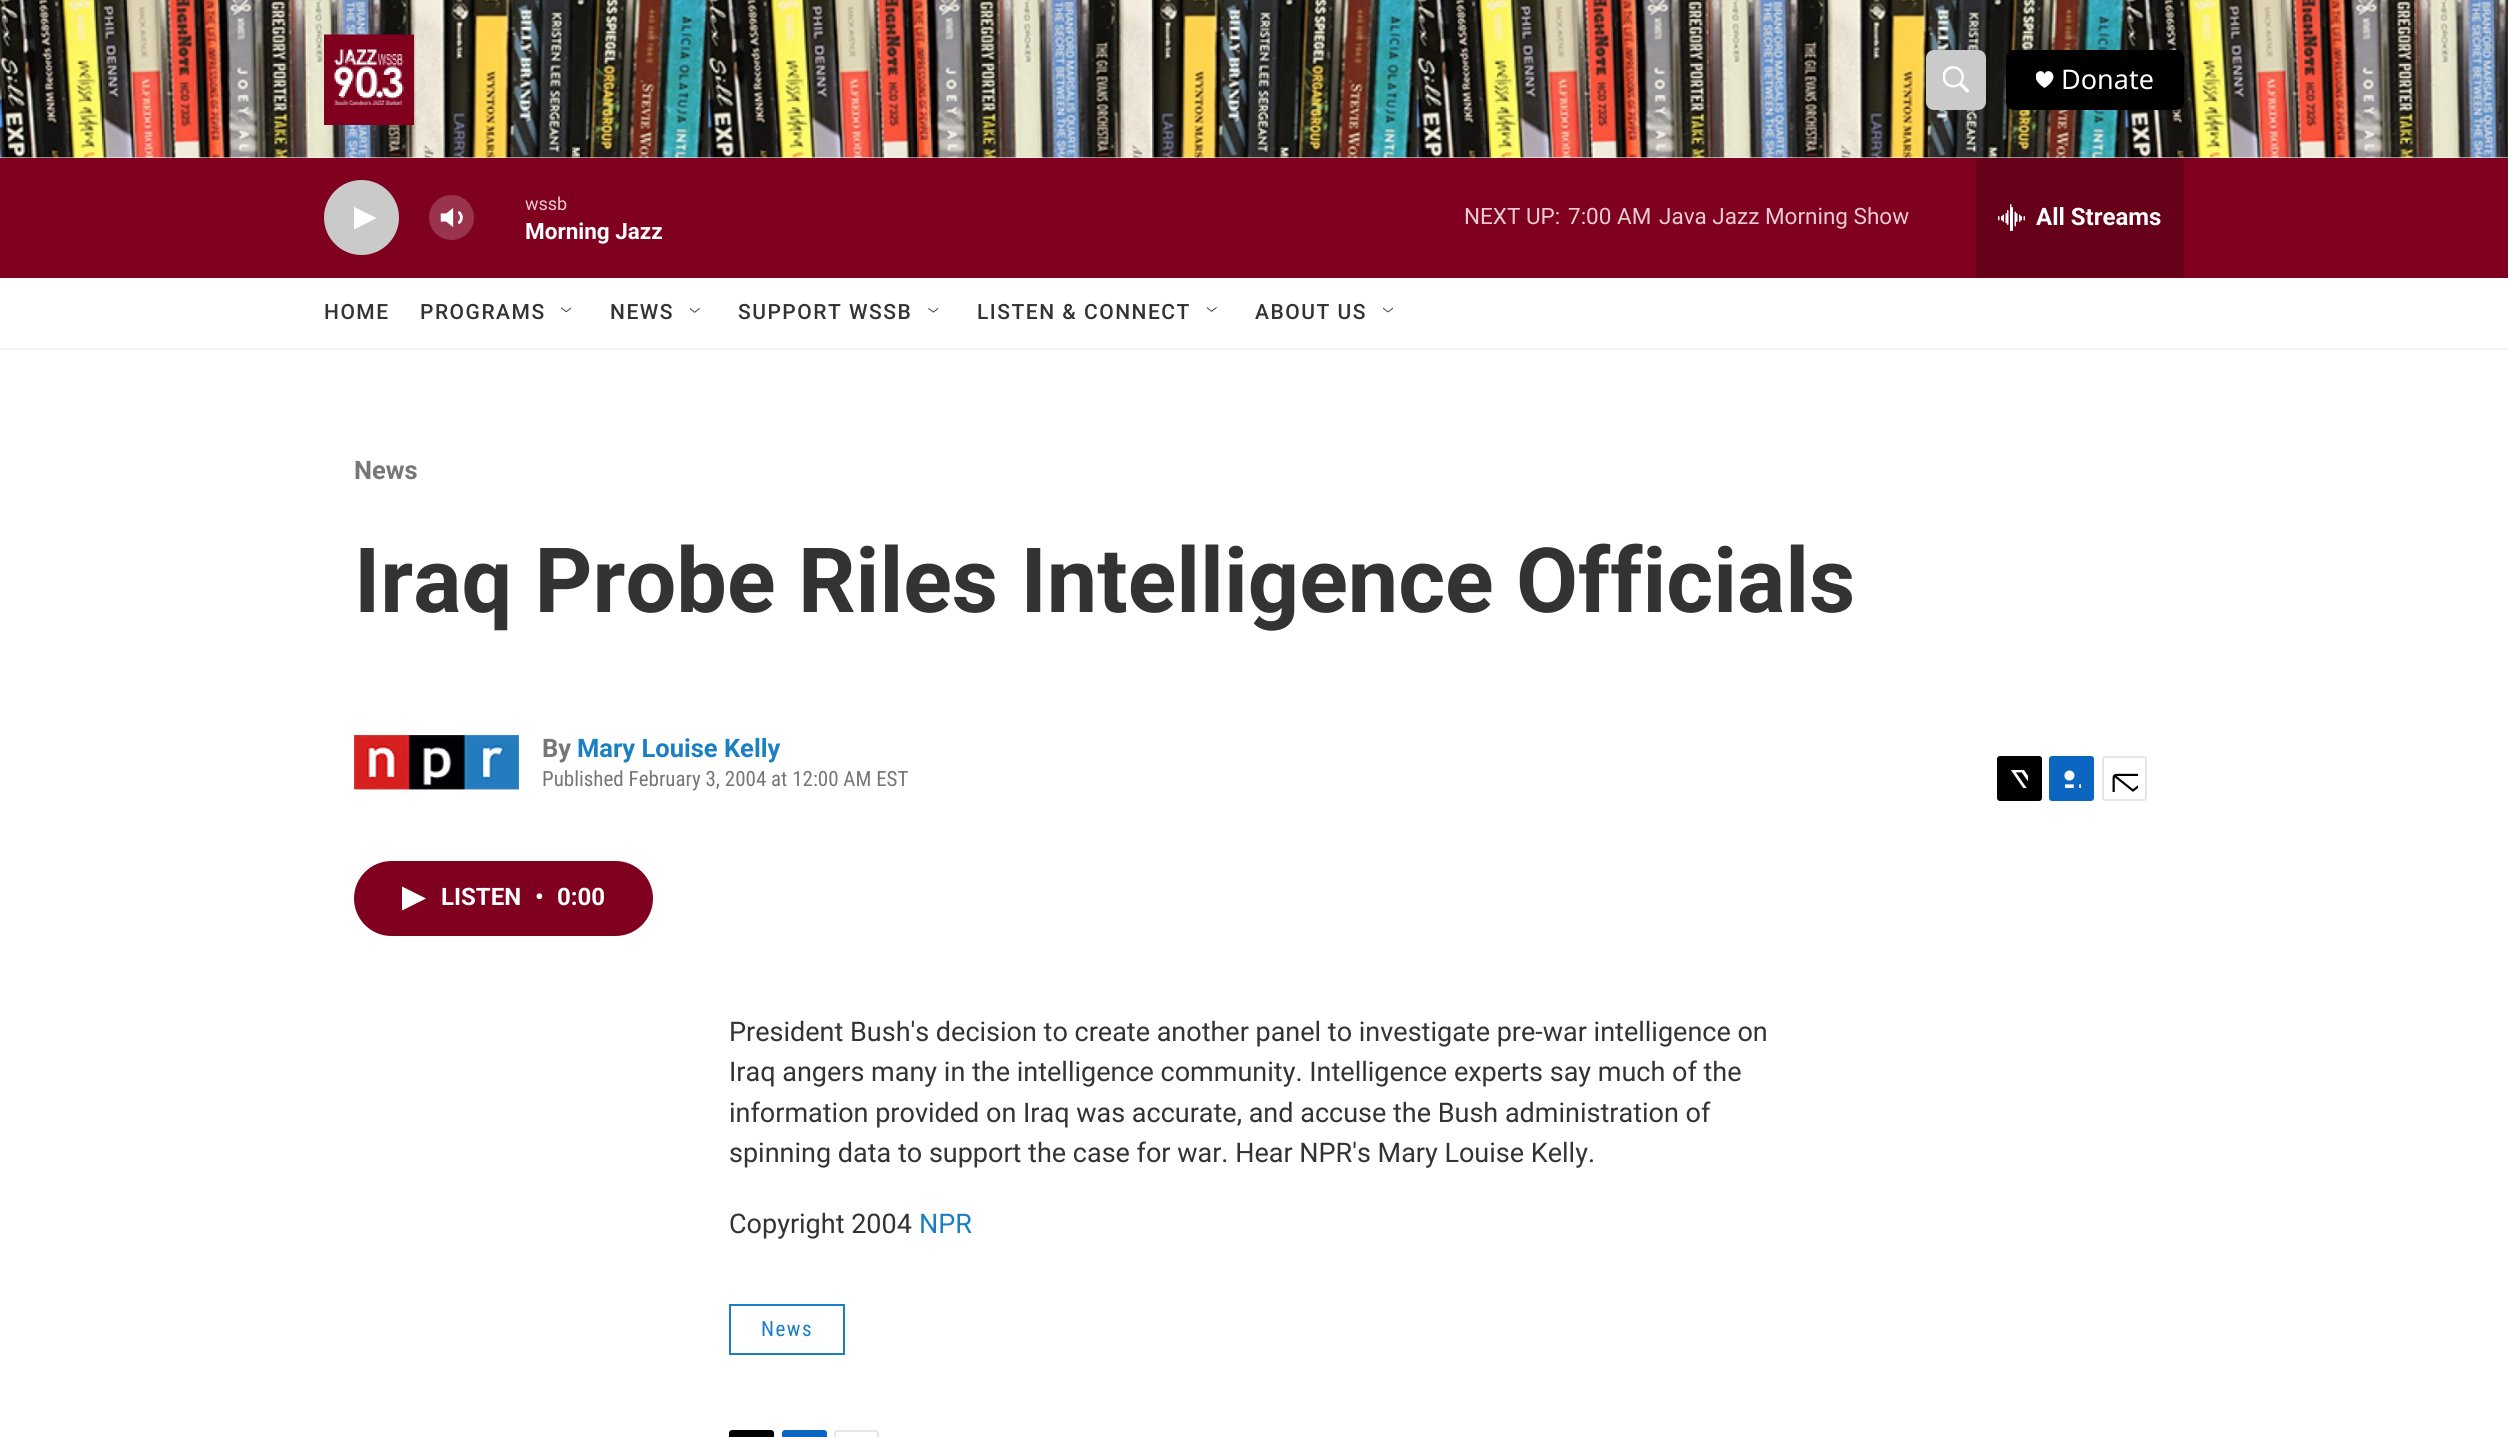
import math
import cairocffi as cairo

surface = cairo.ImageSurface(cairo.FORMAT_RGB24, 2508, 1437)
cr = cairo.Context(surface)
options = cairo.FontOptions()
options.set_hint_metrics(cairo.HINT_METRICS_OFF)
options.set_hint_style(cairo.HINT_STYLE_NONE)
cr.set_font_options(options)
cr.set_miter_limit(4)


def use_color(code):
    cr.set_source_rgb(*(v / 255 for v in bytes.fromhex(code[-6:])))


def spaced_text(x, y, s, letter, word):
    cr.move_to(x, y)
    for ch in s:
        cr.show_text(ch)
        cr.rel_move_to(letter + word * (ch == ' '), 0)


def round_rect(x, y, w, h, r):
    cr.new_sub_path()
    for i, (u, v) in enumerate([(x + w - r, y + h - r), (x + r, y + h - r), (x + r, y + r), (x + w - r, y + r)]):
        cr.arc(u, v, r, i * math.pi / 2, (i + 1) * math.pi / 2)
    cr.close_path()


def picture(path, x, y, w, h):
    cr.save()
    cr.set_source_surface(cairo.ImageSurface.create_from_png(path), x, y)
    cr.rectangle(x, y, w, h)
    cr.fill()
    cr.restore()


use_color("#ffffff")
cr.paint()
use_color("#f5f5f5")
cr.rectangle(0, 348, 2508, 2)
cr.fill()
picture("img1.png", 0, 0, 2508, 158)
picture("img2.png", 324, 34, 90, 91)
use_color("#cacaca")
round_rect(1926, 50, 60, 60, 8)
cr.fill()
picture("img3.png", 1943, 66, 27, 27)
use_color("#000000")
round_rect(2006, 50, 178, 60, 8)
cr.fill()
cr.save()
cr.rectangle(2036, 71, 18, 18)
cr.clip()
use_color("#ffffff")
cr.new_path()
cr.move_to(2044.5, 74)
cr.curve_to(2041.5, 66, 2026, 76, 2044.5, 88)
cr.curve_to(2063, 76, 2047.5, 66, 2044.5, 74)
cr.close_path()
cr.fill()
cr.restore()
cr.select_font_face("Noto Sans")
cr.set_font_size(27)
use_color("#ffffff")
cr.move_to(2061, 89)
cr.show_text("Donate")
use_color("#80011f")
cr.rectangle(0, 158, 2508, 120)
cr.fill()
use_color("#cacaca")
cr.arc(361.5, 217.5, 37.5, 0, 2 * math.pi)
cr.fill()
use_color("#ffffff")
cr.new_path()
cr.move_to(354, 207)
cr.line_to(376.5, 218)
cr.line_to(354, 229.5)
cr.close_path()
cr.fill()
picture("img4.png", 440, 208, 23, 19)
cr.set_source_rgba(1, 1, 1, 0.2)
cr.arc(451.5, 217.5, 22.5, 0, 2 * math.pi)
cr.fill()
cr.select_font_face("Roboto")
cr.set_font_size(18)
use_color("#e6ccd2")
cr.move_to(525, 210)
cr.show_text("wssb")
cr.select_font_face("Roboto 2", cairo.FONT_SLANT_NORMAL, cairo.FONT_WEIGHT_BOLD)
cr.set_font_size(22.5)
use_color("#ffffff")
cr.move_to(525, 239)
cr.show_text("Morning Jazz")
cr.select_font_face("Roboto")
use_color("#e6ccd2")
cr.move_to(1464, 224)
cr.show_text("NEXT UP:")
cr.move_to(1568, 224)
cr.show_text("7:00 AM")
cr.move_to(1659, 224)
cr.show_text("Java Jazz Morning Show")
use_color("#660119")
cr.rectangle(1976, 158, 208, 120)
cr.fill()
picture("img5.png", 1998, 204, 27, 27)
cr.select_font_face("Roboto 2", cairo.FONT_SLANT_NORMAL, cairo.FONT_WEIGHT_BOLD)
cr.set_font_size(24)
use_color("#ffffff")
cr.move_to(2036, 225)
cr.show_text("All Streams")
cr.select_font_face("Roboto Medium")
cr.set_font_size(21)
use_color("#333333")
spaced_text(324, 319, "HOME", 1.5, 0)
spaced_text(420, 319, "PROGRAMS", 1.5, 0)
picture("img6.png", 561, 307, 11, 6)
spaced_text(610, 319, "NEWS", 1.5, 0)
picture("img7.png", 689, 308, 11, 5)
spaced_text(738, 319, "SUPPORT WSSB", 1.5, 0)
picture("img8.png", 928, 307, 11, 6)
spaced_text(977, 319, "LISTEN & CONNECT", 1.5, 0)
picture("img9.png", 1206, 307, 11, 5)
spaced_text(1255, 319, "ABOUT US", 1.5, 0)
picture("img10.png", 1383, 307, 10, 6)
cr.select_font_face("Roboto", cairo.FONT_SLANT_NORMAL, cairo.FONT_WEIGHT_BOLD)
cr.set_font_size(25.5)
use_color("#767676")
cr.move_to(354, 479)
cr.show_text("News")
cr.set_font_size(90)
use_color("#333333")
cr.move_to(354, 612)
cr.show_text("Iraq Probe Riles Intelligence Officials")
picture("img11.png", 354, 735, 165, 56)
cr.set_font_size(25.5)
use_color("#767676")
cr.move_to(542, 757)
cr.show_text("By")
use_color("#1a7fc3")
cr.move_to(577, 757)
cr.show_text("Mary Louise Kelly")
cr.select_font_face("Roboto Condensed")
cr.set_font_size(21)
use_color("#767676")
cr.move_to(542, 786)
cr.show_text("Published February 3, 2004 at 12:00 AM EST")
use_color("#000000")
round_rect(1997, 756, 45, 45, 3)
cr.fill()
picture("img12.png", 2011, 770, 17, 18)
use_color("#0a66c1")
round_rect(2049, 756, 45, 45, 3)
cr.fill()
picture("img13.png", 2064, 770, 17, 18)
round_rect(2103, 757, 43, 43, 2)
use_color("#e6e6e6")
cr.stroke()
picture("img14.png", 2112, 773, 26, 19)
use_color("#80011f")
round_rect(354, 861, 299, 75, 37.5)
cr.fill()
use_color("#ffffff")
cr.new_path()
cr.move_to(402, 886.5)
cr.line_to(426, 898.5)
cr.line_to(402, 910.5)
cr.close_path()
cr.fill()
cr.select_font_face("Roboto 2", cairo.FONT_SLANT_NORMAL, cairo.FONT_WEIGHT_BOLD)
cr.set_font_size(24)
cr.move_to(441, 905)
cr.show_text("LISTEN")
cr.move_to(535, 905)
cr.show_text("•")
cr.move_to(557, 905)
cr.show_text("0:00")
cr.select_font_face("Roboto")
cr.set_font_size(27)
use_color("#333333")
cr.move_to(729, 1041)
cr.show_text("President Bush's decision to create another panel to investigate pre-war intelligence on")
cr.move_to(729, 1081)
cr.show_text("Iraq angers many in the intelligence community. Intelligence experts say much of the")
cr.move_to(729, 1122)
cr.show_text("information provided on Iraq was accurate, and accuse the Bush administration of")
cr.move_to(729, 1162)
cr.show_text("spinning data to support the case for war. Hear NPR's Mary Louise Kelly.")
cr.move_to(729, 1233)
cr.show_text("Copyright 2004")
use_color("#1a7fc3")
cr.move_to(919, 1233)
cr.show_text("NPR")
cr.rectangle(730, 1305, 114, 49)
cr.stroke()
cr.select_font_face("Roboto Condensed")
cr.set_font_size(21)
spaced_text(761, 1336, "News", 1.5, 0)
use_color("#000000")
round_rect(729, 1430, 45, 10, 3)
cr.fill()
use_color("#0a66c1")
round_rect(782, 1430, 45, 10, 3)
cr.fill()
round_rect(835, 1431, 43, 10, 2)
use_color("#e6e6e6")
cr.stroke()
surface.write_to_png("result.png")
